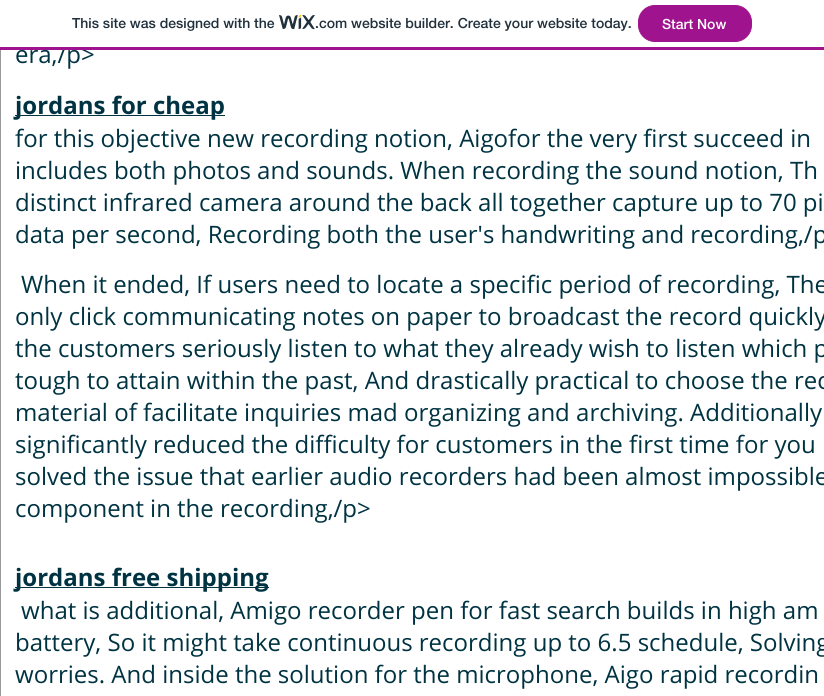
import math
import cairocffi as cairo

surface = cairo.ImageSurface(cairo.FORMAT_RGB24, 824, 696)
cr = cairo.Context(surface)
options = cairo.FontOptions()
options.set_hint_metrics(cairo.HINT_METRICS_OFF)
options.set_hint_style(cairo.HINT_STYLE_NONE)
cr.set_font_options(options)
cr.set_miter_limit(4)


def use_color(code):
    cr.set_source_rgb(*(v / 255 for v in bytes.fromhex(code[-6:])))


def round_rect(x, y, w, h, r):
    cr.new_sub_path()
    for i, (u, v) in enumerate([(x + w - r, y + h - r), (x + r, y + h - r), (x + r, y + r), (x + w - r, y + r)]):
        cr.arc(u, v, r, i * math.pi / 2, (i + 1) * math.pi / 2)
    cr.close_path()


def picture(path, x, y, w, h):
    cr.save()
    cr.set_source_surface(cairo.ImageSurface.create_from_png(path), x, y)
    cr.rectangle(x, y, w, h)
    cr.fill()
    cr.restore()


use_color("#ffffff")
cr.paint()
cr.rectangle(0.5, -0.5, 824, 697)
use_color("#999999")
cr.set_line_width(1)
cr.stroke()
cr.select_font_face("Open Sans")
cr.set_font_size(24)
use_color("#003342")
cr.move_to(15, 63)
cr.show_text("era,/p>")
use_color("#ffffff")
cr.rectangle(0, 0, 66, 47)
cr.fill()
use_color("#a0138e")
cr.rectangle(0, 47, 824, 3)
cr.fill()
cr.select_font_face("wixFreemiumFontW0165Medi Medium")
cr.set_font_size(14)
use_color("#20303c")
cr.move_to(72, 28)
cr.show_text("This site was designed with the")
picture("img1.png", 279, 15, 36, 15)
cr.move_to(315, 28)
cr.show_text(".com website builder. Create your website today.")
use_color("#a0138e")
round_rect(638.5, 5.5, 113, 36, 16.5)
cr.fill_preserve()
cr.stroke()
use_color("#ffffff")
cr.move_to(662, 29)
cr.show_text("Start Now")
use_color("#003342")
cr.rectangle(15, 115, 210, 1)
cr.fill()
cr.select_font_face("Open Sans", cairo.FONT_SLANT_NORMAL, cairo.FONT_WEIGHT_BOLD)
cr.set_font_size(24)
cr.move_to(15, 114)
cr.show_text("jordans for cheap")
cr.select_font_face("Open Sans")
cr.move_to(15, 147)
cr.show_text("for this objective new recording notion, Aigofor the very first succeed in")
cr.move_to(15, 179)
cr.show_text("includes both photos and sounds. When recording the sound notion, Th")
cr.move_to(15, 211)
cr.show_text("distinct infrared camera around the back all together capture up to 70 pi")
cr.move_to(15, 243)
cr.show_text("data per second, Recording both the user's handwriting and recording,/p")
cr.move_to(21, 293)
cr.show_text("When it ended, If users need to locate a specific period of recording, The")
cr.move_to(15, 325)
cr.show_text("only click communicating notes on paper to broadcast the record quickly")
cr.move_to(15, 357)
cr.show_text("the customers seriously listen to what they already wish to listen which p")
cr.move_to(15, 389)
cr.show_text("tough to attain within the past, And drastically practical to choose the rec")
cr.move_to(15, 421)
cr.show_text("material of facilitate inquiries mad organizing and archiving. Additionally")
cr.move_to(15, 453)
cr.show_text("significantly reduced the difficulty for customers in the first time for you")
cr.move_to(15, 485)
cr.show_text("solved the issue that earlier audio recorders had been almost impossible")
cr.move_to(15, 517)
cr.show_text("component in the recording,/p>")
cr.rectangle(15, 587, 254, 1)
cr.fill()
cr.select_font_face("Open Sans", cairo.FONT_SLANT_NORMAL, cairo.FONT_WEIGHT_BOLD)
cr.move_to(15, 586)
cr.show_text("jordans free shipping")
cr.select_font_face("Open Sans")
cr.move_to(21, 619)
cr.show_text("what is additional, Amigo recorder pen for fast search builds in high am")
cr.move_to(15, 651)
cr.show_text("battery, So it might take continuous recording up to 6.5 schedule, Solving")
cr.move_to(15, 683)
cr.show_text("worries. And inside the solution for the microphone, Aigo rapid recordin")
surface.write_to_png("result.png")
